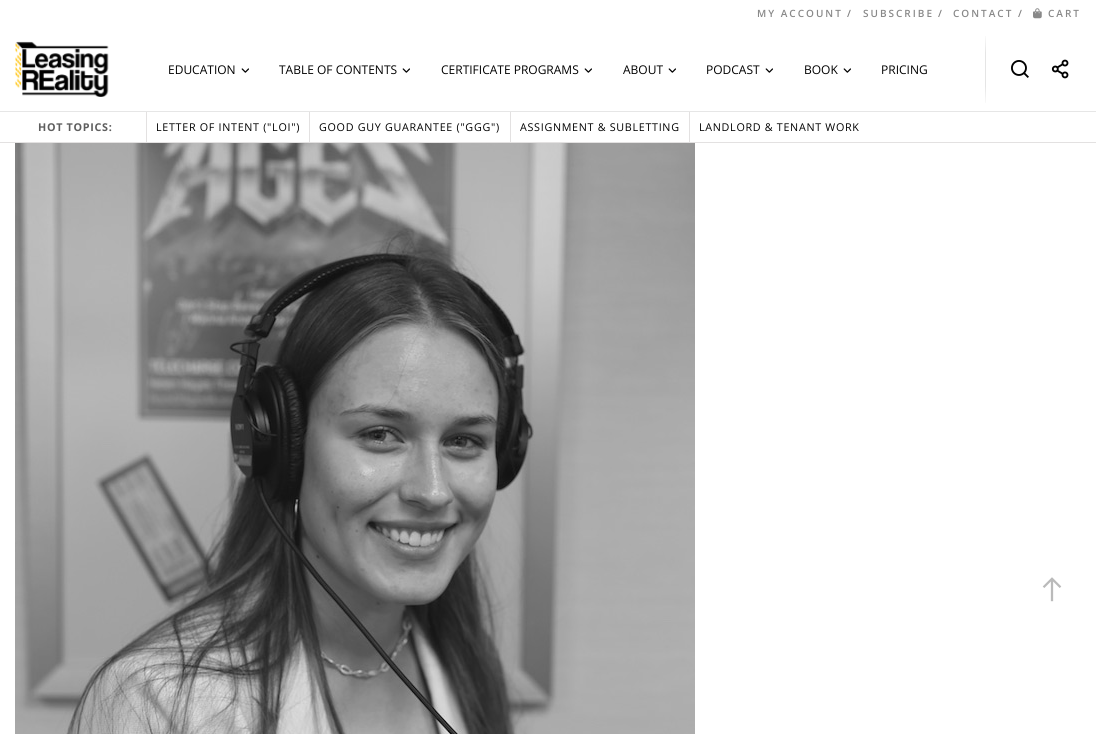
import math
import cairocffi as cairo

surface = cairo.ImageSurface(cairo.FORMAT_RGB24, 1096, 734)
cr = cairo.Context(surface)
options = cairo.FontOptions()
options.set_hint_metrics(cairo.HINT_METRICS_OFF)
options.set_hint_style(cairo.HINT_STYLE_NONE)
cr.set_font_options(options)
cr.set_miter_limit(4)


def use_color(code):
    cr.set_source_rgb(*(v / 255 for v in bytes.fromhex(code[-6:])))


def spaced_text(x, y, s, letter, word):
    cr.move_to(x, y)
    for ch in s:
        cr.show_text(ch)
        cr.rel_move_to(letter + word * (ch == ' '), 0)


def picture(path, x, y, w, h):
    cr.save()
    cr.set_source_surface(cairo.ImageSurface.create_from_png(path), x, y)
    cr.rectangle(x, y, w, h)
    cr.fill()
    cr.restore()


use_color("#ffffff")
cr.paint()
cr.select_font_face("Open Sans SemiBold")
cr.set_font_size(10)
use_color("#898989")
spaced_text(757, 17, "MY ACCOUNT", 2, 0)
use_color("#808080")
spaced_text(847, 17, "/", 2, 0)
use_color("#898989")
spaced_text(863, 17, "SUBSCRIBE", 2, 0)
use_color("#808080")
spaced_text(938, 17, "/", 2, 0)
use_color("#898989")
spaced_text(953, 17, "CONTACT", 2, 0)
use_color("#808080")
spaced_text(1018, 17, "/", 2, 0)
picture("img1.png", 1033, 8, 9, 11)
use_color("#898989")
spaced_text(1048, 17, "CART", 2, 0)
use_color("#e6e6e6")
cr.rectangle(0, 111, 1096, 1)
cr.fill()
picture("img2.png", 15, 41, 94, 56)
cr.select_font_face("Open Sans")
cr.set_font_size(12)
use_color("#000000")
cr.move_to(168, 74)
cr.show_text("EDUCATION")
picture("img3.png", 241, 68, 8, 5)
cr.move_to(279, 74)
cr.show_text("TABLE OF CONTENTS")
picture("img3.png", 402, 68, 8, 5)
cr.move_to(441, 74)
cr.show_text("CERTIFICATE PROGRAMS")
picture("img3.png", 584, 68, 8, 5)
cr.move_to(623, 74)
cr.show_text("ABOUT")
picture("img3.png", 668, 68, 8, 5)
cr.move_to(706, 74)
cr.show_text("PODCAST")
picture("img3.png", 765, 68, 8, 5)
cr.move_to(804, 74)
cr.show_text("BOOK")
picture("img3.png", 843, 68, 8, 5)
cr.move_to(881, 74)
cr.show_text("PRICING")
gradient = cairo.LinearGradient(986, 27, 986, 112)
gradient.add_color_stop_rgba(0.05, 0, 0, 0, 0)
gradient.add_color_stop_rgba(0.3, 0, 0, 0, 0.1)
gradient.add_color_stop_rgba(0.7, 0, 0, 0, 0.1)
gradient.add_color_stop_rgba(0.95, 0, 0, 0, 0)
cr.set_source(gradient)
cr.rectangle(985, 36, 1, 67)
cr.fill()
picture("img4.png", 1011, 60, 18, 18)
picture("img5.png", 1051, 59, 18, 20)
use_color("#e3e1e1")
cr.rectangle(0, 142, 1096, 1)
cr.fill()
cr.rectangle(146, 112, 1, 30)
cr.fill()
cr.select_font_face("Open Sans", cairo.FONT_SLANT_NORMAL, cairo.FONT_WEIGHT_BOLD)
cr.set_font_size(10.75)
use_color("#5e5e5e")
spaced_text(38, 131, "HOT TOPICS:", 0.7, 0)
use_color("#e3e1e1")
cr.rectangle(309, 112, 1, 30)
cr.fill()
cr.select_font_face("Open Sans")
use_color("#000000")
spaced_text(156, 131, "LETTER OF INTENT (\"LOI\")", 0.7, 0)
use_color("#e3e1e1")
cr.rectangle(510, 112, 1, 30)
cr.fill()
use_color("#000000")
spaced_text(319, 131, "GOOD GUY GUARANTEE (\"GGG\")", 0.7, 0)
use_color("#e3e1e1")
cr.rectangle(689, 112, 1, 30)
cr.fill()
use_color("#000000")
spaced_text(520, 131, "ASSIGNMENT & SUBLETTING", 0.7, 0)
spaced_text(699, 131, "LANDLORD & TENANT WORK", 0.7, 0)
picture("img6.png", 15, 143, 680, 591)
picture("img7.png", 1042, 577, 20, 25)
surface.write_to_png("result.png")
